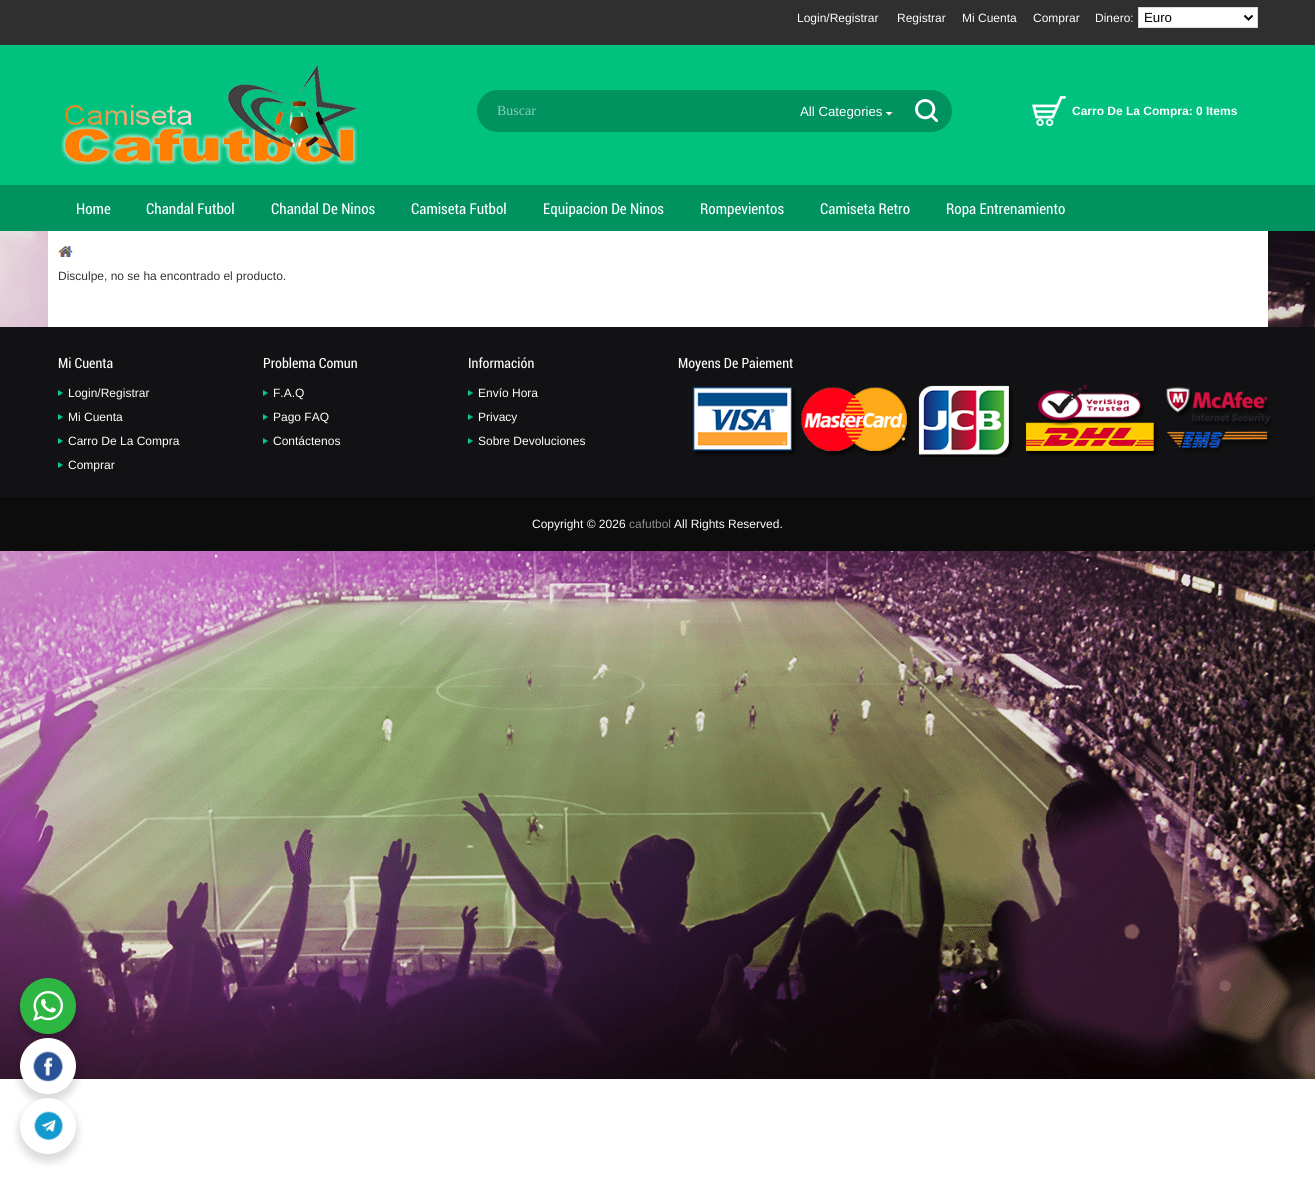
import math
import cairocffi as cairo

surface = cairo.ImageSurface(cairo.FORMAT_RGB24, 1315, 1199)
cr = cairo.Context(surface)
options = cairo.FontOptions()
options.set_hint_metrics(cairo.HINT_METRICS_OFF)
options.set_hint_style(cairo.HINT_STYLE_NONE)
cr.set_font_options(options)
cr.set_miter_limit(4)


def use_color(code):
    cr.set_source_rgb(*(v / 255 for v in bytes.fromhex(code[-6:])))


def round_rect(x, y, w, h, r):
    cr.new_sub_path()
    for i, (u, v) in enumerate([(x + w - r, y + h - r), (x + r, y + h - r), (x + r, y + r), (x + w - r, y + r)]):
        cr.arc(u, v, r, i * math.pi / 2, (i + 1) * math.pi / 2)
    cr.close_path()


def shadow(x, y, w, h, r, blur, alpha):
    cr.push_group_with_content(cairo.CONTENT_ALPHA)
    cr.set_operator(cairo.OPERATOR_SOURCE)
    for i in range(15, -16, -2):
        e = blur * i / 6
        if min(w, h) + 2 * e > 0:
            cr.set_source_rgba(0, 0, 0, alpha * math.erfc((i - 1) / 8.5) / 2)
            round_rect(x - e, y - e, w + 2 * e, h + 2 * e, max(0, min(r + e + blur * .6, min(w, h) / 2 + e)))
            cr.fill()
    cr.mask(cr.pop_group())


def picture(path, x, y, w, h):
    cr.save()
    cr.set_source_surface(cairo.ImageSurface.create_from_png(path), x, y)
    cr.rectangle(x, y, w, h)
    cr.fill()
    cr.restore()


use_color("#ffffff")
cr.paint()
picture("img1.png", 0, 231, 1315, 848)
use_color("#2f2f2f")
cr.rectangle(0, 0, 1315, 45)
cr.fill()
cr.select_font_face("Liberation Sans")
cr.set_font_size(12)
use_color("#ffffff")
cr.move_to(797, 22)
cr.show_text("Login/Registrar")
cr.move_to(897, 22)
cr.show_text("Registrar")
cr.move_to(962, 22)
cr.show_text("Mi Cuenta")
cr.move_to(1033, 22)
cr.show_text("Comprar")
cr.move_to(1095, 22)
cr.show_text("Dinero:")
cr.rectangle(1138.5, 7.5, 119, 20)
cr.fill_preserve()
use_color("#dddddd")
cr.set_line_width(1)
cr.stroke()
cr.new_path()
cr.move_to(1244.5, 15.5)
cr.line_to(1248.5, 19.5)
cr.line_to(1252.5, 15.5)
use_color("#010101")
cr.set_line_width(2)
cr.stroke()
cr.set_font_size(13.25)
cr.move_to(1144, 22)
cr.show_text("Euro")
use_color("#00c17e")
cr.rectangle(0, 45, 1315, 140)
cr.fill()
picture("img2.png", 60, 65, 298, 100)
use_color("#00935f")
round_rect(477, 90, 475, 42, 21)
cr.fill()
cr.select_font_face("Liberation Serif")
cr.set_font_size(14)
use_color("#8ccdb9")
cr.move_to(497, 115)
cr.show_text("Buscar")
picture("img3.png", 886, 112, 7, 4)
cr.select_font_face("Liberation Sans")
cr.set_font_size(13.25)
use_color("#ffffff")
cr.move_to(800, 116)
cr.show_text("All Categories")
picture("img4.png", 915, 99, 23, 23)
picture("img5.png", 1032, 96, 34, 30)
cr.select_font_face("Liberation Sans", cairo.FONT_SLANT_NORMAL, cairo.FONT_WEIGHT_BOLD)
cr.set_font_size(12)
cr.move_to(1072, 115)
cr.show_text("Carro De La Compra: 0 Items")
use_color("#00935f")
cr.rectangle(0, 185, 1315, 46)
cr.fill()
cr.select_font_face("Roboto")
cr.set_font_size(15)
use_color("#ffffff")
cr.move_to(76, 214)
cr.show_text("Home")
cr.move_to(146, 214)
cr.show_text("Chandal Futbol")
cr.move_to(271, 214)
cr.show_text("Chandal De Ninos")
cr.move_to(411, 214)
cr.show_text("Camiseta Futbol")
cr.move_to(543, 214)
cr.show_text("Equipacion De Ninos")
cr.move_to(700, 214)
cr.show_text("Rompevientos")
cr.move_to(820, 214)
cr.show_text("Camiseta Retro")
cr.move_to(946, 214)
cr.show_text("Ropa Entrenamiento")
cr.rectangle(48, 231, 1220, 96)
cr.fill()
picture("img6.png", 58, 246, 15, 11)
cr.select_font_face("Liberation Sans")
cr.set_font_size(12)
use_color("#333333")
cr.move_to(58, 280)
cr.show_text("Disculpe, no se ha encontrado el producto.")
use_color("#121214")
cr.rectangle(0, 327, 1315, 170)
cr.fill()
cr.select_font_face("Roboto")
cr.set_font_size(14)
use_color("#ffffff")
cr.move_to(58, 368)
cr.show_text("Mi Cuenta")
picture("img7.png", 58, 390, 5, 6)
cr.select_font_face("Liberation Sans")
cr.set_font_size(12)
cr.move_to(68, 397)
cr.show_text("Login/Registrar")
picture("img7.png", 58, 414, 5, 6)
cr.move_to(68, 421)
cr.show_text("Mi Cuenta")
picture("img7.png", 58, 438, 5, 6)
cr.move_to(68, 445)
cr.show_text("Carro De La Compra")
picture("img7.png", 58, 462, 5, 6)
cr.move_to(68, 469)
cr.show_text("Comprar")
cr.select_font_face("Roboto")
cr.set_font_size(14)
cr.move_to(263, 368)
cr.show_text("Problema Comun")
picture("img7.png", 263, 390, 5, 6)
cr.select_font_face("Liberation Sans")
cr.set_font_size(12)
cr.move_to(273, 397)
cr.show_text("F.A.Q")
picture("img7.png", 263, 414, 5, 6)
cr.move_to(273, 421)
cr.show_text("Pago FAQ")
picture("img7.png", 263, 438, 5, 6)
cr.move_to(273, 445)
cr.show_text("Contáctenos")
cr.select_font_face("Roboto")
cr.set_font_size(14)
cr.move_to(468, 368)
cr.show_text("Información")
picture("img8.png", 468, 390, 5, 6)
cr.select_font_face("Liberation Sans")
cr.set_font_size(12)
cr.move_to(478, 397)
cr.show_text("Envío Hora")
picture("img8.png", 468, 414, 5, 6)
cr.move_to(478, 421)
cr.show_text("Privacy")
picture("img8.png", 468, 438, 5, 6)
cr.move_to(478, 445)
cr.show_text("Sobre Devoluciones")
cr.select_font_face("Roboto")
cr.set_font_size(14)
cr.move_to(678, 368)
cr.show_text("Moyens De Paiement")
picture("img9.png", 692, 385, 580, 72)
use_color("#0c0c0c")
cr.rectangle(0, 497, 1315, 54)
cr.fill()
cr.select_font_face("Liberation Sans")
cr.set_font_size(12)
use_color("#ffffff")
cr.move_to(532, 528)
cr.show_text("Copyright © 2026")
use_color("#8e8e8e")
cr.move_to(629, 528)
cr.show_text("cafutbol")
use_color("#ffffff")
cr.move_to(674, 528)
cr.show_text("All Rights Reserved.")
use_color("#000000")
shadow(18, 982, 60, 60, 30, 4, 0.14)
use_color("#2db742")
cr.arc(48, 1006, 28, 0, 2 * math.pi)
cr.fill()
picture("img10.png", 33, 991, 30, 30)
use_color("#000000")
shadow(18, 1042, 60, 60, 30, 4, 0.14)
use_color("#ffffff")
cr.arc(48, 1066, 28, 0, 2 * math.pi)
cr.fill()
picture("img11.png", 33, 1051, 30, 31)
use_color("#000000")
shadow(18, 1102, 60, 60, 30, 4, 0.14)
use_color("#ffffff")
cr.arc(48, 1126, 28, 0, 2 * math.pi)
cr.fill()
picture("img12.png", 34, 1111, 29, 30)
surface.write_to_png("result.png")
